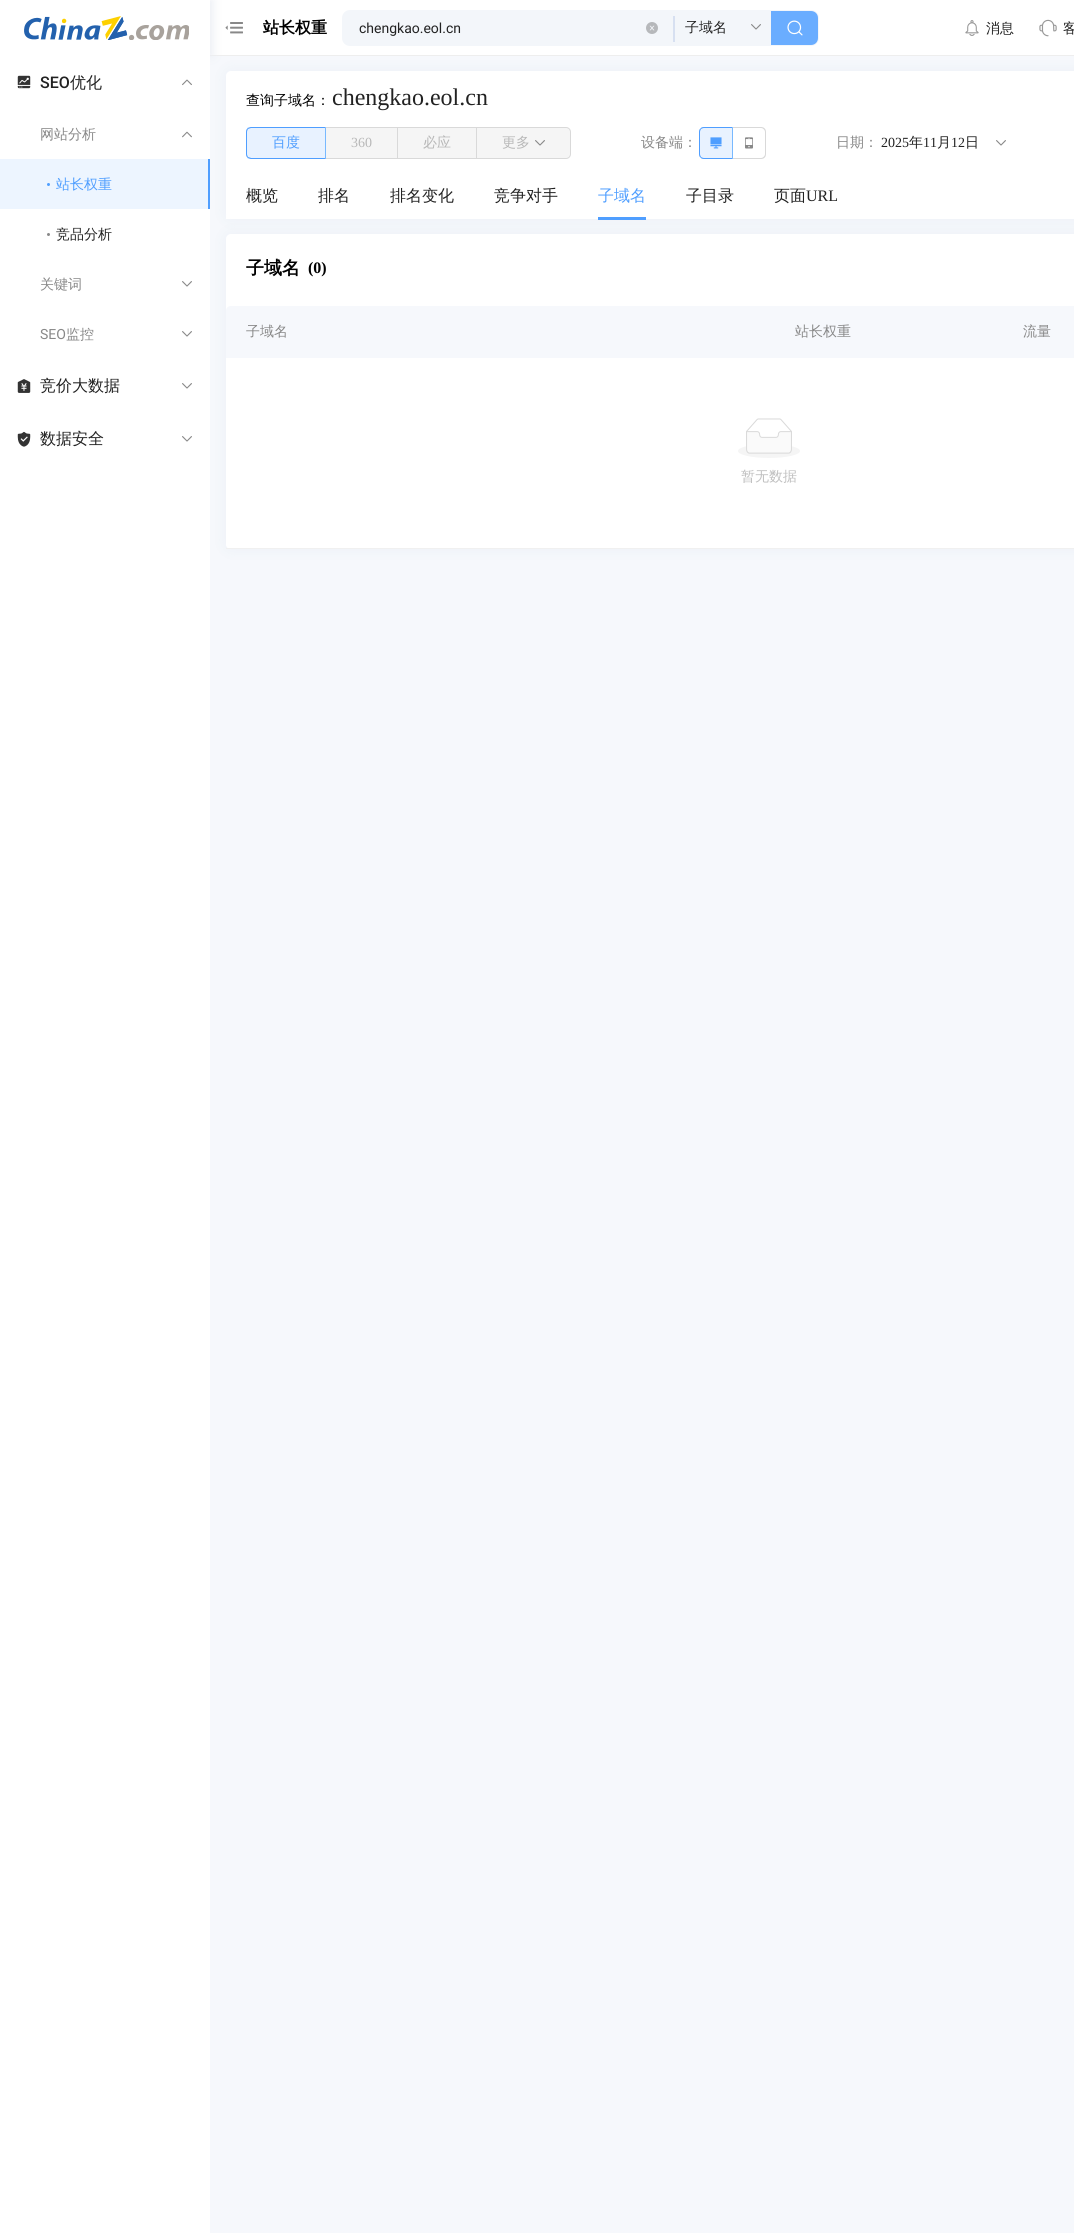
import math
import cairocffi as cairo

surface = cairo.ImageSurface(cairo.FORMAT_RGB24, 1074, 2233)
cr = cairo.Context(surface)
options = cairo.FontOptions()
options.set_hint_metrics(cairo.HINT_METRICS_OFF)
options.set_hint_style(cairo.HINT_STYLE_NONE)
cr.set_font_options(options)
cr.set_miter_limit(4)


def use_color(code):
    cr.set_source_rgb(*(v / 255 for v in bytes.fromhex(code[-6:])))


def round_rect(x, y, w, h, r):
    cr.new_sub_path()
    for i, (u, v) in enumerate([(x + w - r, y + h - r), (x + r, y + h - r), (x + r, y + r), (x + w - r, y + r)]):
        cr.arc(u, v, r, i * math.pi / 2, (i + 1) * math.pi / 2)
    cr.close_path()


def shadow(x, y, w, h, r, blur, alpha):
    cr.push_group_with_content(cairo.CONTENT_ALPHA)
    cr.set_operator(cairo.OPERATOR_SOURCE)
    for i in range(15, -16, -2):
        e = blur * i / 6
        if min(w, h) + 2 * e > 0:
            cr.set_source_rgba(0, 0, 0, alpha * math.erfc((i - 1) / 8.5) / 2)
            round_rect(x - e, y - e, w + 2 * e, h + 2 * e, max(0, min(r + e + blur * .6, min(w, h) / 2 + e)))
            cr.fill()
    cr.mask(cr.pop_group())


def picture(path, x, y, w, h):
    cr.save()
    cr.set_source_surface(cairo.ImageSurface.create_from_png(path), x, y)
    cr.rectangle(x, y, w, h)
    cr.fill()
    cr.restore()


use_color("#f6f8fc")
cr.paint()
use_color("#1d4978")
shadow(226, 71, 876, 148, 5, 7.5, 0.05)
use_color("#ffffff")
round_rect(226, 71, 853, 148, 5)
cr.fill()
cr.rectangle(226, 215, 4, 4)
cr.fill()
use_color("#4f9eff")
cr.rectangle(598, 217, 48, 3)
cr.fill()
use_color("#1d4978")
shadow(226, 234, 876, 315, 5, 7.5, 0.05)
use_color("#ffffff")
cr.rectangle(0, 0, 210, 2233)
cr.fill()
cr.rectangle(210, 0, 864, 55)
cr.fill()
use_color("#eeeeee")
cr.rectangle(210, 55, 864, 1)
cr.fill()
picture("img8.png", 225, 22, 18, 12)
cr.save()
cr.rectangle(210, 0, 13, 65)
cr.clip()
use_color("#ebeef4")
shadow(3, 0, 210, 56, 0, 5, 1)
cr.restore()
picture("img1.png", 24, 16, 165, 24)
use_color("#ffffff")
cr.rectangle(0, 56, 210, 6)
cr.fill()
picture("img2.png", 17, 75, 14, 14)
cr.select_font_face("Roboto Medium")
cr.set_font_size(16)
use_color("#222222")
cr.move_to(40, 88)
cr.show_text("SEO")
cr.select_font_face("WenQuanYi Zen Hei Medium")
cr.move_to(70, 88)
cr.show_text("优化")
picture("img3.png", 182, 79, 10, 7)
cr.set_font_size(14)
use_color("#888888")
cr.move_to(40, 139)
cr.show_text("网站分析")
picture("img4.png", 182, 131, 10, 7)
use_color("#edf5ff")
cr.rectangle(0, 159, 208, 50)
cr.fill()
use_color("#4f9eff")
cr.arc(48.5, 184.5, 1.5, 0, 2 * math.pi)
cr.fill()
cr.move_to(56, 189)
cr.show_text("站长权重")
cr.rectangle(208, 159, 2, 50)
cr.fill()
use_color("#888888")
cr.arc(48.5, 234.5, 1.5, 0, 2 * math.pi)
cr.fill()
use_color("#222222")
cr.move_to(56, 239)
cr.show_text("竞品分析")
use_color("#888888")
cr.move_to(40, 289)
cr.show_text("关键词")
picture("img5.png", 182, 281, 10, 6)
cr.select_font_face("Roboto")
cr.move_to(40, 339)
cr.show_text("SEO")
cr.select_font_face("WenQuanYi Zen Hei Medium")
cr.move_to(66, 339)
cr.show_text("监控")
picture("img5.png", 182, 331, 10, 6)
picture("img6.png", 17, 379, 14, 14)
cr.set_font_size(16)
use_color("#222222")
cr.move_to(40, 391)
cr.show_text("竞价大数据")
picture("img5.png", 182, 383, 10, 6)
picture("img7.png", 17, 431, 14, 16)
cr.move_to(40, 444)
cr.show_text("数据安全")
picture("img5.png", 182, 436, 10, 6)
cr.select_font_face("WenQuanYi Zen Hei", cairo.FONT_SLANT_NORMAL, cairo.FONT_WEIGHT_BOLD)
use_color("#000000")
cr.move_to(263, 33)
cr.show_text("站长权重")
use_color("#f3f6fa")
round_rect(342, 10, 477, 36, 8)
cr.fill()
cr.select_font_face("Roboto")
cr.set_font_size(14)
use_color("#222222")
cr.move_to(359, 33)
cr.show_text("chengkao.eol.cn")
picture("img9.png", 646, 22, 12, 12)
use_color("#d7e0f1")
cr.rectangle(673, 16, 2, 26)
cr.fill()
cr.select_font_face("WenQuanYi Zen Hei Medium")
use_color("#222222")
cr.move_to(685, 32)
cr.show_text("子域名")
picture("img10.png", 751, 24, 10, 6)
use_color("#6aadff")
cr.new_path()
cr.move_to(771, 11)
cr.line_to(811, 11)
cr.curve_to(815, 11, 818, 14, 818, 18)
cr.line_to(818, 38)
cr.curve_to(818, 42, 815, 45, 811, 45)
cr.line_to(771, 45)
cr.close_path()
cr.fill()
picture("img11.png", 787, 20, 16, 16)
picture("img12.png", 965, 20, 14, 16)
use_color("#222222")
cr.move_to(986, 33)
cr.show_text("消息")
picture("img13.png", 1039, 19, 18, 18)
cr.move_to(1063, 33)
cr.show_text("客")
use_color("#000000")
cr.move_to(246, 105)
cr.show_text("查询子域名：")
cr.select_font_face("Liberation Serif")
cr.set_font_size(24)
use_color("#222222")
cr.move_to(332, 105)
cr.show_text("chengkao.eol.cn")
use_color("#e8f2ff")
cr.new_path()
cr.move_to(251, 127)
cr.line_to(326, 127)
cr.line_to(326, 159)
cr.line_to(251, 159)
cr.curve_to(248, 159, 246, 157, 246, 154)
cr.line_to(246, 132)
cr.curve_to(246, 129, 248, 127, 251, 127)
cr.close_path()
cr.fill()
use_color("#4f9eff")
cr.new_path()
cr.move_to(251, 127)
cr.curve_to(250, 127, 248, 128, 247, 128)
cr.line_to(248, 129)
cr.line_to(251, 128)
cr.line_to(325, 128)
cr.line_to(326, 127)
cr.close_path()
cr.fill()
use_color("#78b9ff")
cr.new_path()
cr.move_to(326, 127)
cr.line_to(325, 128)
cr.line_to(325, 158)
cr.line_to(326, 159)
cr.close_path()
cr.fill()
use_color("#4f9eff")
cr.new_path()
cr.move_to(326, 159)
cr.line_to(325, 158)
cr.line_to(251, 158)
cr.line_to(248, 157)
cr.line_to(247, 158)
cr.curve_to(248, 158, 250, 159, 251, 159)
cr.close_path()
cr.fill()
cr.new_path()
cr.move_to(246, 132)
cr.line_to(246, 154)
cr.curve_to(246, 155.5, 246.5, 157, 247.5, 157.5)
cr.line_to(248, 157)
cr.curve_to(247.5, 156, 247, 155, 247, 154)
cr.line_to(247, 132)
cr.curve_to(247, 131, 247.5, 130, 248, 129)
cr.line_to(247.5, 128.5)
cr.curve_to(246.5, 129, 246, 130.5, 246, 132)
cr.close_path()
cr.fill()
cr.select_font_face("WenQuanYi Zen Hei Medium")
cr.set_font_size(14)
cr.move_to(272, 147)
cr.show_text("百度")
use_color("#f5f5f5")
cr.rectangle(326, 128, 71, 30)
cr.fill()
use_color("#d9d9d9")
cr.rectangle(326, 127, 151, 1)
cr.fill()
cr.rectangle(397, 127, 1, 32)
cr.fill()
cr.rectangle(326, 158, 151, 1)
cr.fill()
cr.select_font_face("Liberation Serif")
use_color("#b8b8b8")
cr.move_to(351, 147)
cr.show_text("360")
use_color("#f5f5f5")
cr.rectangle(398, 128, 78, 30)
cr.fill()
cr.select_font_face("WenQuanYi Zen Hei Medium")
use_color("#b8b8b8")
cr.move_to(423, 147)
cr.show_text("必应")
use_color("#f5f5f5")
cr.new_path()
cr.move_to(476.5, 127.5)
cr.line_to(566, 127.5)
cr.curve_to(568.5, 127.5, 570.5, 129.5, 570.5, 132)
cr.line_to(570.5, 154)
cr.curve_to(570.5, 156.5, 568.5, 158.5, 566, 158.5)
cr.line_to(476.5, 158.5)
cr.close_path()
cr.fill_preserve()
use_color("#d9d9d9")
cr.set_line_width(1)
cr.stroke()
use_color("#b8b8b8")
cr.move_to(502, 147)
cr.show_text("更多")
picture("img14.png", 535, 140, 10, 6)
use_color("#888888")
cr.move_to(641, 147)
cr.show_text("设备端：")
use_color("#e8f2ff")
cr.new_path()
cr.move_to(704, 127)
cr.line_to(733, 127)
cr.line_to(733, 159)
cr.line_to(704, 159)
cr.curve_to(701, 159, 699, 157, 699, 154)
cr.line_to(699, 132)
cr.curve_to(699, 129, 701, 127, 704, 127)
cr.close_path()
cr.fill()
use_color("#4f9eff")
cr.new_path()
cr.move_to(704, 127)
cr.curve_to(702.5, 127, 701, 127.5, 700.5, 128.5)
cr.line_to(701, 129)
cr.curve_to(702, 128.5, 703, 128, 704, 128)
cr.line_to(732, 128)
cr.line_to(733, 127)
cr.close_path()
cr.fill()
use_color("#78b9ff")
cr.new_path()
cr.move_to(733, 127)
cr.line_to(732, 128)
cr.line_to(732, 158)
cr.line_to(733, 159)
cr.close_path()
cr.fill()
use_color("#4f9eff")
cr.new_path()
cr.move_to(733, 159)
cr.line_to(732, 158)
cr.line_to(704, 158)
cr.curve_to(703, 158, 702, 157.5, 701, 157)
cr.line_to(700.5, 157.5)
cr.curve_to(701, 158.5, 702.5, 159, 704, 159)
cr.close_path()
cr.fill()
cr.new_path()
cr.move_to(699, 132)
cr.line_to(699, 154)
cr.curve_to(699, 155.5, 699.5, 157, 700.5, 157.5)
cr.line_to(701, 157)
cr.curve_to(700.5, 156, 700, 155, 700, 154)
cr.line_to(700, 132)
cr.curve_to(700, 131, 700.5, 130, 701, 129)
cr.line_to(700.5, 128.5)
cr.curve_to(699.5, 129, 699, 130.5, 699, 132)
cr.close_path()
cr.fill()
picture("img15.png", 710, 137, 12, 12)
use_color("#d9d9d9")
cr.set_fill_rule(cairo.FILL_RULE_EVEN_ODD)
cr.new_path()
cr.move_to(733, 127)
cr.line_to(761, 127)
cr.curve_to(764, 127, 766, 129, 766, 132)
cr.line_to(766, 154)
cr.curve_to(766, 157, 764, 159, 761, 159)
cr.line_to(733, 159)
cr.close_path()
cr.move_to(733, 128)
cr.line_to(761, 128)
cr.curve_to(763, 128, 765, 130, 765, 132)
cr.line_to(765, 154)
cr.curve_to(765, 156, 763, 158, 761, 158)
cr.line_to(733, 158)
cr.close_path()
cr.fill()
picture("img16.png", 745, 137, 8, 12)
use_color("#888888")
cr.move_to(836, 147)
cr.show_text("日期：")
cr.select_font_face("Liberation Serif")
use_color("#222222")
cr.move_to(881, 147)
cr.show_text("2025")
cr.select_font_face("WenQuanYi Zen Hei Medium")
cr.move_to(909, 147)
cr.show_text("年")
cr.select_font_face("Liberation Serif")
cr.move_to(923, 147)
cr.show_text("11")
cr.select_font_face("WenQuanYi Zen Hei Medium")
cr.move_to(937, 147)
cr.show_text("月")
cr.select_font_face("Liberation Serif")
cr.move_to(951, 147)
cr.show_text("12")
cr.select_font_face("WenQuanYi Zen Hei Medium")
cr.move_to(965, 147)
cr.show_text("日")
picture("img5.png", 996, 140, 10, 6)
cr.set_font_size(16)
cr.move_to(246, 201)
cr.show_text("概览")
cr.move_to(318, 201)
cr.show_text("排名")
cr.move_to(390, 201)
cr.show_text("排名变化")
cr.move_to(494, 201)
cr.show_text("竞争对手")
use_color("#4f9eff")
cr.move_to(598, 201)
cr.show_text("子域名")
use_color("#222222")
cr.move_to(686, 201)
cr.show_text("子目录")
cr.move_to(774, 201)
cr.show_text("页面")
cr.select_font_face("Liberation Serif")
cr.move_to(806, 201)
cr.show_text("URL")
use_color("#ffffff")
round_rect(226, 234, 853, 315, 5)
cr.fill()
cr.select_font_face("WenQuanYi Zen Hei", cairo.FONT_SLANT_NORMAL, cairo.FONT_WEIGHT_BOLD)
cr.set_font_size(18)
use_color("#000000")
cr.move_to(246, 274)
cr.show_text("子域名")
cr.select_font_face("Liberation Serif", cairo.FONT_SLANT_NORMAL, cairo.FONT_WEIGHT_BOLD)
cr.set_font_size(16)
cr.move_to(308, 273)
cr.show_text("(0)")
use_color("#ffffff")
round_rect(226, 306, 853, 243, 5)
cr.fill()
use_color("#f6f8fc")
cr.new_path()
cr.move_to(231, 306)
cr.line_to(671, 306)
cr.line_to(671, 358)
cr.line_to(226, 358)
cr.line_to(226, 311)
cr.curve_to(226, 308, 228, 306, 231, 306)
cr.close_path()
cr.fill()
cr.select_font_face("WenQuanYi Zen Hei Medium")
cr.set_font_size(14)
use_color("#888888")
cr.move_to(246, 336)
cr.show_text("子域名")
use_color("#f6f8fc")
cr.rectangle(671, 306, 403, 52)
cr.fill()
use_color("#888888")
cr.move_to(795, 336)
cr.show_text("站长权重")
cr.move_to(1023, 336)
cr.show_text("流量")
use_color("#f0f0f0")
cr.rectangle(226, 548, 848, 1)
cr.fill()
picture("img17.png", 738, 418, 62, 40)
use_color("#bfbfbf")
cr.move_to(741, 481)
cr.show_text("暂无数据")
surface.write_to_png("result.png")
